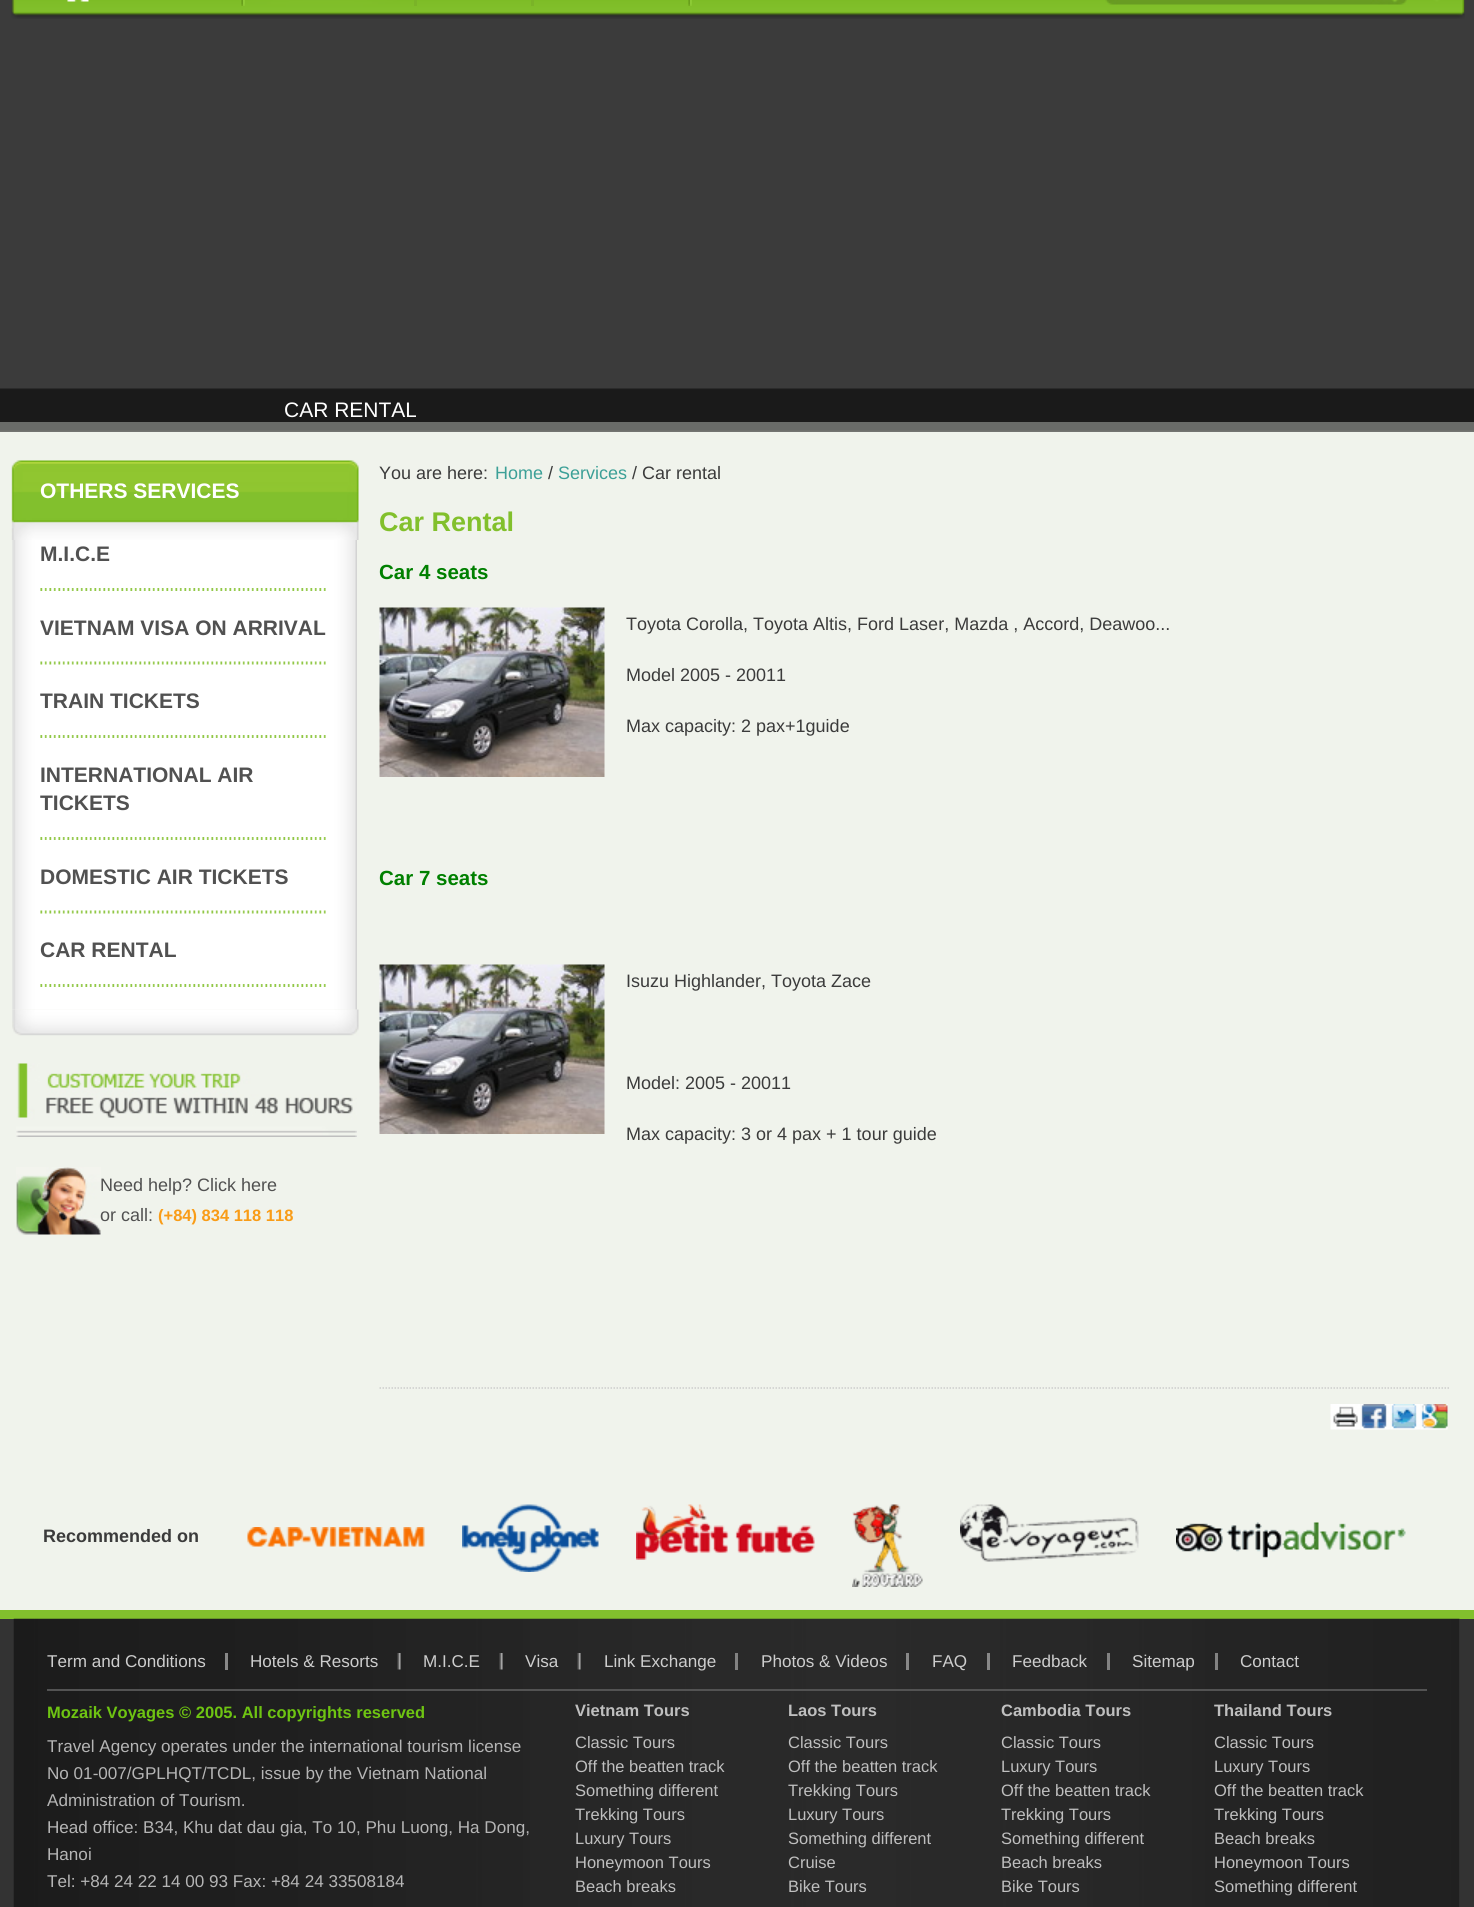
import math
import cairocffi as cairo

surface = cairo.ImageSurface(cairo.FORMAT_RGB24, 1474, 1907)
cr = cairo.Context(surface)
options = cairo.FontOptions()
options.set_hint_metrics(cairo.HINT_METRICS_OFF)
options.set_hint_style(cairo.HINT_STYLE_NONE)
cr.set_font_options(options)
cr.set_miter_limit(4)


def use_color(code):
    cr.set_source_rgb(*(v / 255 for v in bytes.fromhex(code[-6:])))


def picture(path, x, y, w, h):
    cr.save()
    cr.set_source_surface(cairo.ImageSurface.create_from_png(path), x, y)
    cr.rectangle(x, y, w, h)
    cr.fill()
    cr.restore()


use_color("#f0f3ec")
cr.paint()
use_color("#3b3b3b")
cr.rectangle(0, 0, 1474, 422)
cr.fill()
picture("img1.png", 11, 0, 1454, 19)
picture("img2.png", 67, 0, 22, 2)
picture("img3.png", 241, 0, 4, 6)
use_color("#7ab328")
cr.rectangle(414, 0, 3, 6)
cr.fill()
cr.rectangle(531, 0, 3, 6)
cr.fill()
picture("img4.png", 688, 0, 4, 6)
picture("img5.png", 1105, 0, 302, 5)
picture("img6.png", 0, 388, 1474, 44)
cr.select_font_face("Liberation Sans")
cr.set_font_size(21)
use_color("#ffffff")
cr.move_to(284, 417)
cr.show_text("CAR RENTAL")
picture("img7.png", 12, 1009, 347, 27)
picture("img8.png", 11, 460, 348, 80)
cr.select_font_face("Liberation Sans", cairo.FONT_SLANT_NORMAL, cairo.FONT_WEIGHT_BOLD)
cr.move_to(40, 498)
cr.show_text("OTHERS SERVICES")
picture("img9.png", 12, 540, 345, 470)
picture("img10.png", 40, 588, 286, 3)
use_color("#515151")
cr.move_to(40, 561)
cr.show_text("M.I.C.E")
picture("img11.png", 40, 661, 286, 4)
cr.move_to(40, 635)
cr.show_text("VIETNAM VISA ON ARRIVAL")
picture("img10.png", 40, 735, 286, 3)
cr.move_to(40, 708)
cr.show_text("TRAIN TICKETS")
picture("img10.png", 40, 837, 286, 3)
cr.move_to(40, 782)
cr.show_text("INTERNATIONAL AIR")
cr.move_to(40, 810)
cr.show_text("TICKETS")
picture("img11.png", 40, 910, 286, 4)
cr.move_to(40, 884)
cr.show_text("DOMESTIC AIR TICKETS")
picture("img10.png", 40, 984, 286, 3)
cr.move_to(40, 957)
cr.show_text("CAR RENTAL")
picture("img12.png", 16, 1063, 341, 74)
picture("img13.png", 16, 1167, 85, 68)
cr.select_font_face("Liberation Sans")
cr.set_font_size(18)
cr.move_to(100, 1191)
cr.show_text("Need help? Click here")
cr.move_to(100, 1221)
cr.show_text("or call:")
cr.select_font_face("Liberation Sans", cairo.FONT_SLANT_NORMAL, cairo.FONT_WEIGHT_BOLD)
cr.set_font_size(16.5)
use_color("#f99c17")
cr.move_to(158, 1221)
cr.show_text("(+84) 834 118 118")
cr.select_font_face("Liberation Sans")
cr.set_font_size(18)
use_color("#3b3b3b")
cr.move_to(379, 479)
cr.show_text("You are here:")
use_color("#3ca097")
cr.move_to(495, 479)
cr.show_text("Home")
use_color("#3b3b3b")
cr.move_to(548, 479)
cr.show_text("/")
use_color("#3ca097")
cr.move_to(558, 479)
cr.show_text("Services")
use_color("#3b3b3b")
cr.move_to(632, 479)
cr.show_text("/ Car rental")
cr.select_font_face("Liberation Sans", cairo.FONT_SLANT_NORMAL, cairo.FONT_WEIGHT_BOLD)
cr.set_font_size(27)
use_color("#82c02c")
cr.move_to(379, 531)
cr.show_text("Car Rental")
cr.set_font_size(20.5)
use_color("#008000")
cr.move_to(379, 579)
cr.show_text("Car 4 seats")
picture("img14.png", 379, 607, 226, 170)
cr.select_font_face("Liberation Sans")
cr.set_font_size(18)
use_color("#3b3b3b")
cr.move_to(626, 630)
cr.show_text("Toyota Corolla, Toyota Altis, Ford Laser, Mazda , Accord, Deawoo...")
cr.move_to(626, 681)
cr.show_text("Model 2005 - 20011")
cr.move_to(626, 732)
cr.show_text("Max capacity: 2 pax+1guide")
cr.select_font_face("Liberation Sans", cairo.FONT_SLANT_NORMAL, cairo.FONT_WEIGHT_BOLD)
cr.set_font_size(20.5)
use_color("#008000")
cr.move_to(379, 885)
cr.show_text("Car 7 seats")
picture("img14.png", 379, 964, 226, 170)
cr.select_font_face("Liberation Sans")
cr.set_font_size(18)
use_color("#3b3b3b")
cr.move_to(626, 987)
cr.show_text("Isuzu Highlander, Toyota Zace")
cr.move_to(626, 1089)
cr.show_text("Model: 2005 - 20011")
cr.move_to(626, 1140)
cr.show_text("Max capacity: 3 or 4 pax + 1 tour guide")
cr.new_path()
cr.move_to(379.5, 1388)
cr.line_to(1450.5, 1388)
use_color("#cccccc")
cr.set_line_width(1.5)
cr.set_dash([1.5, 1.5])
cr.stroke()
picture("img15.png", 1330, 1404, 31, 26)
picture("img16.png", 1360, 1404, 31, 26)
picture("img17.png", 1390, 1404, 31, 26)
picture("img18.png", 1420, 1404, 28, 26)
cr.select_font_face("Liberation Sans", cairo.FONT_SLANT_NORMAL, cairo.FONT_WEIGHT_BOLD)
use_color("#3b3b3b")
cr.move_to(43, 1542)
cr.show_text("Recommended on")
picture("img19.png", 247, 1527, 178, 20)
picture("img20.png", 462, 1504, 137, 68)
picture("img21.png", 636, 1504, 179, 56)
picture("img22.png", 852, 1504, 71, 83)
picture("img23.png", 960, 1504, 179, 58)
picture("img24.png", 1176, 1522, 230, 36)
use_color("#333333")
cr.rectangle(0, 1619, 1474, 288)
cr.fill()
use_color("#82c02d")
cr.rectangle(0, 1610, 1474, 9)
cr.fill()
picture("img25.png", 13, 1618, 1447, 289)
use_color("#535353")
cr.rectangle(47, 1689, 1380, 2)
cr.fill()
use_color("#888888")
cr.rectangle(225, 1653, 3, 17)
cr.fill()
cr.select_font_face("Liberation Sans")
cr.set_font_size(17.1)
use_color("#cdcdcd")
cr.move_to(47, 1667)
cr.show_text("Term and Conditions")
picture("img26.png", 397, 1653, 4, 17)
cr.move_to(250, 1667)
cr.show_text("Hotels & Resorts")
picture("img27.png", 499, 1653, 4, 17)
cr.move_to(423, 1667)
cr.show_text("M.I.C.E")
picture("img28.png", 577, 1653, 4, 17)
cr.move_to(525, 1667)
cr.show_text("Visa")
use_color("#828282")
cr.rectangle(735, 1653, 3, 17)
cr.fill()
use_color("#cdcdcd")
cr.move_to(604, 1667)
cr.show_text("Link Exchange")
use_color("#888888")
cr.rectangle(906, 1653, 3, 17)
cr.fill()
use_color("#cdcdcd")
cr.move_to(761, 1667)
cr.show_text("Photos & Videos")
use_color("#888888")
cr.rectangle(987, 1653, 3, 17)
cr.fill()
use_color("#cdcdcd")
cr.move_to(932, 1667)
cr.show_text("FAQ")
use_color("#828282")
cr.rectangle(1107, 1653, 3, 17)
cr.fill()
use_color("#cdcdcd")
cr.move_to(1012, 1667)
cr.show_text("Feedback")
use_color("#828282")
cr.rectangle(1215, 1653, 3, 17)
cr.fill()
use_color("#cdcdcd")
cr.move_to(1132, 1667)
cr.show_text("Sitemap")
cr.move_to(1240, 1667)
cr.show_text("Contact")
cr.select_font_face("Liberation Sans", cairo.FONT_SLANT_NORMAL, cairo.FONT_WEIGHT_BOLD)
cr.set_font_size(16.5)
use_color("#6ec412")
cr.move_to(47, 1718)
cr.show_text("Mozaik Voyages © 2005. All copyrights reserved")
cr.select_font_face("Liberation Sans")
cr.set_font_size(17.1)
use_color("#b5b5b5")
cr.move_to(47, 1752)
cr.show_text("Travel Agency operates under the international tourism license")
cr.move_to(47, 1779)
cr.show_text("No 01-007/GPLHQT/TCDL, issue by the Vietnam National")
cr.move_to(47, 1806)
cr.show_text("Administration of Tourism.")
cr.move_to(47, 1833)
cr.show_text("Head office: B34, Khu dat dau gia, To 10, Phu Luong, Ha Dong,")
cr.move_to(47, 1860)
cr.show_text("Hanoi")
cr.move_to(47, 1887)
cr.show_text("Tel: +84 24 22 14 00 93 Fax: +84 24 33508184")
cr.select_font_face("Liberation Sans", cairo.FONT_SLANT_NORMAL, cairo.FONT_WEIGHT_BOLD)
cr.set_font_size(16.5)
use_color("#bfbfbf")
cr.move_to(575, 1716)
cr.show_text("Vietnam Tours")
cr.select_font_face("Liberation Sans")
cr.move_to(575, 1748)
cr.show_text("Classic Tours")
cr.move_to(575, 1772)
cr.show_text("Off the beatten track")
cr.move_to(575, 1796)
cr.show_text("Something different")
cr.move_to(575, 1820)
cr.show_text("Trekking Tours")
cr.move_to(575, 1844)
cr.show_text("Luxury Tours")
cr.move_to(575, 1868)
cr.show_text("Honeymoon Tours")
cr.move_to(575, 1892)
cr.show_text("Beach breaks")
cr.select_font_face("Liberation Sans", cairo.FONT_SLANT_NORMAL, cairo.FONT_WEIGHT_BOLD)
cr.move_to(788, 1716)
cr.show_text("Laos Tours")
cr.select_font_face("Liberation Sans")
cr.move_to(788, 1748)
cr.show_text("Classic Tours")
cr.move_to(788, 1772)
cr.show_text("Off the beatten track")
cr.move_to(788, 1796)
cr.show_text("Trekking Tours")
cr.move_to(788, 1820)
cr.show_text("Luxury Tours")
cr.move_to(788, 1844)
cr.show_text("Something different")
cr.move_to(788, 1868)
cr.show_text("Cruise")
cr.move_to(788, 1892)
cr.show_text("Bike Tours")
cr.select_font_face("Liberation Sans", cairo.FONT_SLANT_NORMAL, cairo.FONT_WEIGHT_BOLD)
cr.move_to(1001, 1716)
cr.show_text("Cambodia Tours")
cr.select_font_face("Liberation Sans")
cr.move_to(1001, 1748)
cr.show_text("Classic Tours")
cr.move_to(1001, 1772)
cr.show_text("Luxury Tours")
cr.move_to(1001, 1796)
cr.show_text("Off the beatten track")
cr.move_to(1001, 1820)
cr.show_text("Trekking Tours")
cr.move_to(1001, 1844)
cr.show_text("Something different")
cr.move_to(1001, 1868)
cr.show_text("Beach breaks")
cr.move_to(1001, 1892)
cr.show_text("Bike Tours")
cr.select_font_face("Liberation Sans", cairo.FONT_SLANT_NORMAL, cairo.FONT_WEIGHT_BOLD)
cr.move_to(1214, 1716)
cr.show_text("Thailand Tours")
cr.select_font_face("Liberation Sans")
cr.move_to(1214, 1748)
cr.show_text("Classic Tours")
cr.move_to(1214, 1772)
cr.show_text("Luxury Tours")
cr.move_to(1214, 1796)
cr.show_text("Off the beatten track")
cr.move_to(1214, 1820)
cr.show_text("Trekking Tours")
cr.move_to(1214, 1844)
cr.show_text("Beach breaks")
cr.move_to(1214, 1868)
cr.show_text("Honeymoon Tours")
cr.move_to(1214, 1892)
cr.show_text("Something different")
surface.write_to_png("result.png")
